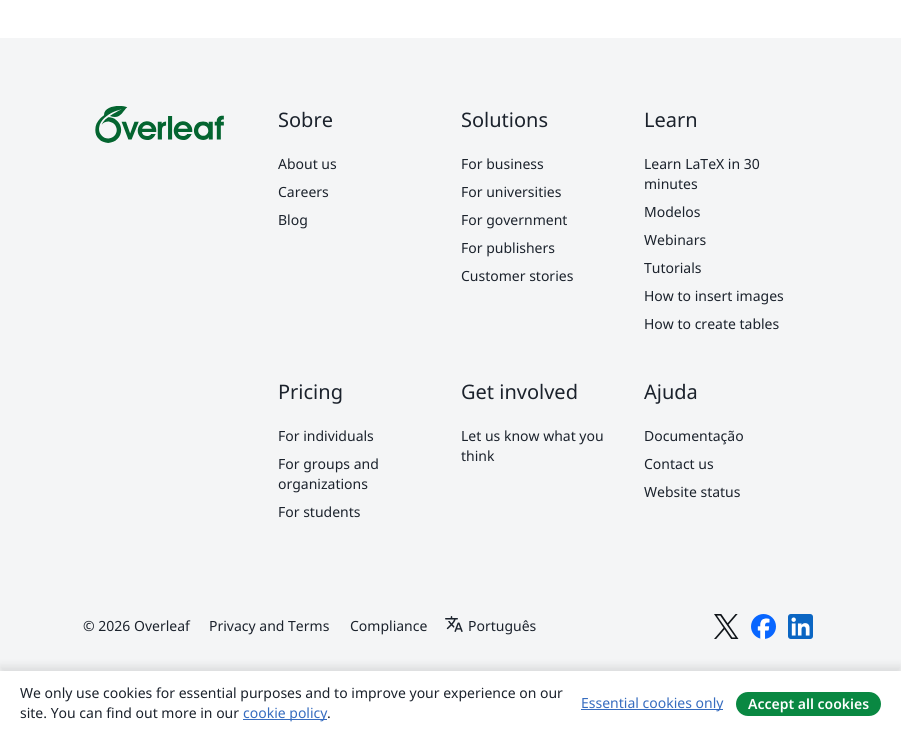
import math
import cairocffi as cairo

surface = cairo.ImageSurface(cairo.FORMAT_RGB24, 901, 735)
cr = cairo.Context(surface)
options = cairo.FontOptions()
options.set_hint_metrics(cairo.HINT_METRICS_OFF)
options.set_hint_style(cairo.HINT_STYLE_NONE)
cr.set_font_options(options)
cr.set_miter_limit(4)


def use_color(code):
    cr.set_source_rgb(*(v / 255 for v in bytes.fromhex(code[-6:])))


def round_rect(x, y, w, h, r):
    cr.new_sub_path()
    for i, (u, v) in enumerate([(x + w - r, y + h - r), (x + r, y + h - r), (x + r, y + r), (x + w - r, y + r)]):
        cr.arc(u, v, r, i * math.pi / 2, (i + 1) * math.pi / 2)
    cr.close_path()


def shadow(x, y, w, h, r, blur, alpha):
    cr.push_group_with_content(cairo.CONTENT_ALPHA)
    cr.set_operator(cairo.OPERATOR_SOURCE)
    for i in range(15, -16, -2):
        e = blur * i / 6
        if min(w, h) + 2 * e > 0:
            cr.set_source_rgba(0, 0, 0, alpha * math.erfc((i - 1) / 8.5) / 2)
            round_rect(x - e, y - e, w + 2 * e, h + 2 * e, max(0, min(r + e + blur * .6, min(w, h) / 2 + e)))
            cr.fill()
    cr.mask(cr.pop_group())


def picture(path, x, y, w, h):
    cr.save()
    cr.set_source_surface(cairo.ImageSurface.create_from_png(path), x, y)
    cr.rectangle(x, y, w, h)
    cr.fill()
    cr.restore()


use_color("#ffffff")
cr.paint()
use_color("#f4f5f6")
cr.rectangle(0, 38, 901, 633)
cr.fill()
picture("img1.png", 95, 106, 129, 37)
cr.select_font_face("Noto Sans")
cr.set_font_size(20)
use_color("#1b222c")
cr.move_to(278, 127)
cr.show_text("Sobre")
cr.set_font_size(14)
cr.move_to(278, 169)
cr.show_text("About us")
cr.move_to(278, 197)
cr.show_text("Careers")
cr.move_to(278, 225)
cr.show_text("Blog")
cr.set_font_size(20)
cr.move_to(461, 127)
cr.show_text("Solutions")
cr.set_font_size(14)
cr.move_to(461, 169)
cr.show_text("For business")
cr.move_to(461, 197)
cr.show_text("For universities")
cr.move_to(461, 225)
cr.show_text("For government")
cr.move_to(461, 253)
cr.show_text("For publishers")
cr.move_to(461, 281)
cr.show_text("Customer stories")
cr.set_font_size(20)
cr.move_to(644, 127)
cr.show_text("Learn")
cr.set_font_size(14)
cr.move_to(644, 169)
cr.show_text("Learn LaTeX in 30")
cr.move_to(644, 189)
cr.show_text("minutes")
cr.move_to(644, 217)
cr.show_text("Modelos")
cr.move_to(644, 245)
cr.show_text("Webinars")
cr.move_to(644, 273)
cr.show_text("Tutorials")
cr.move_to(644, 301)
cr.show_text("How to insert images")
cr.move_to(644, 329)
cr.show_text("How to create tables")
cr.set_font_size(20)
cr.move_to(278, 399)
cr.show_text("Pricing")
cr.set_font_size(14)
cr.move_to(278, 441)
cr.show_text("For individuals")
cr.move_to(278, 469)
cr.show_text("For groups and")
cr.move_to(278, 489)
cr.show_text("organizations")
cr.move_to(278, 517)
cr.show_text("For students")
cr.set_font_size(20)
cr.move_to(461, 399)
cr.show_text("Get involved")
cr.set_font_size(14)
cr.move_to(461, 441)
cr.show_text("Let us know what you")
cr.move_to(461, 461)
cr.show_text("think")
cr.set_font_size(20)
cr.move_to(644, 399)
cr.show_text("Ajuda")
cr.set_font_size(14)
cr.move_to(644, 441)
cr.show_text("Documentação")
cr.move_to(644, 469)
cr.show_text("Contact us")
cr.move_to(644, 497)
cr.show_text("Website status")
cr.move_to(83, 631)
cr.show_text("© 2026 Overleaf")
cr.move_to(209, 631)
cr.show_text("Privacy and Terms")
cr.move_to(350, 631)
cr.show_text("Compliance")
picture("img2.png", 445, 616, 18, 16)
cr.move_to(468, 631)
cr.show_text("Português")
picture("img3.png", 714, 614, 25, 25)
picture("img4.png", 751, 614, 25, 25)
picture("img5.png", 788, 614, 25, 25)
use_color("#000000")
shadow(0, 666, 901, 64, 0, 4, 0.1)
use_color("#ffffff")
cr.rectangle(0, 671, 901, 64)
cr.fill()
use_color("#1b222c")
cr.move_to(20, 698)
cr.show_text("We only use cookies for essential purposes and to improve your experience on our")
cr.move_to(20, 718)
cr.show_text("site. You can find out more in our")
use_color("#366cbf")
cr.rectangle(243, 719, 84, 1)
cr.fill()
cr.move_to(243, 718)
cr.show_text("cookie policy")
use_color("#1b222c")
cr.move_to(327, 718)
cr.show_text(".")
use_color("#366cbf")
cr.rectangle(581, 709, 142, 1)
cr.fill()
cr.move_to(581, 708)
cr.show_text("Essential cookies only")
use_color("#098842")
round_rect(736, 692, 145, 24, 12)
cr.fill()
cr.select_font_face("Noto Sans SemiBold")
use_color("#ffffff")
cr.move_to(748, 709)
cr.show_text("Accept all cookies")
surface.write_to_png("result.png")
